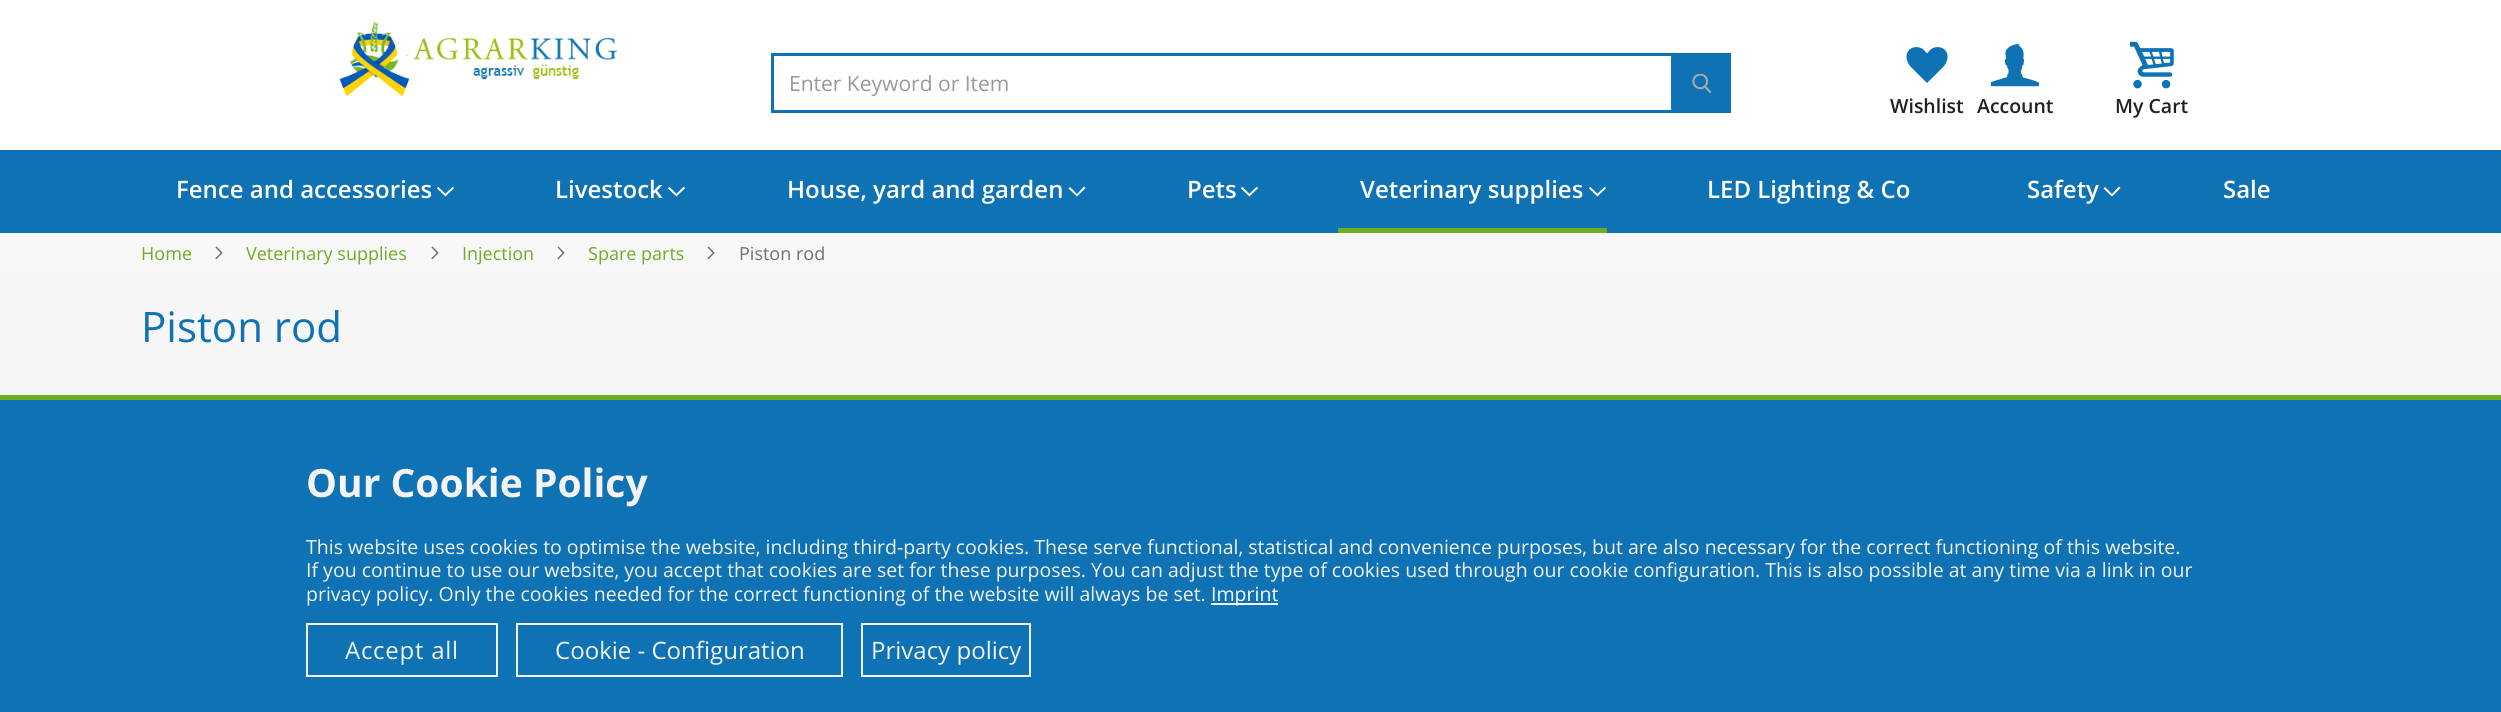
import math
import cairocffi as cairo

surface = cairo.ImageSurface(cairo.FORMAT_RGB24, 2501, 712)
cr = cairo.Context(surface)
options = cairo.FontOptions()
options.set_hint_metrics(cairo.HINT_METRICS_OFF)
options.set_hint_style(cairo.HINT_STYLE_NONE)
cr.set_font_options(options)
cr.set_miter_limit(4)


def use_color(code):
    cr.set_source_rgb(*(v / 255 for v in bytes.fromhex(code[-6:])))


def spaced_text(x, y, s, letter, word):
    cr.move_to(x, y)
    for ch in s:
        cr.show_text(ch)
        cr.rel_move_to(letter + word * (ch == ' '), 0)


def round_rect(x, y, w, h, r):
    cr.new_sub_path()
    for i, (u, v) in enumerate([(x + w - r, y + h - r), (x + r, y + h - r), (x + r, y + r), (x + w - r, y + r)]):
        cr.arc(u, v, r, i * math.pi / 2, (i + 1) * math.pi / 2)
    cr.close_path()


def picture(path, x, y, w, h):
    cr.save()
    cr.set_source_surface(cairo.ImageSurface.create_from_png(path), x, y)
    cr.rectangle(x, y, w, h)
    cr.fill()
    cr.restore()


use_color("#ffffff")
cr.paint()
picture("img1.png", 339, 20, 278, 77)
cr.rectangle(772.5, 54.5, 957, 57)
use_color("#0e72b5")
cr.set_line_width(3)
cr.stroke()
cr.select_font_face("Open Sans")
cr.set_font_size(21)
use_color("#999999")
cr.move_to(789, 91)
cr.show_text("Enter Keyword or Item")
use_color("#0e72b5")
round_rect(1671, 53, 60, 60, 5)
cr.fill()
picture("img2.png", 1692, 74, 20, 19)
picture("img3.png", 1906, 47, 42, 36)
cr.select_font_face("Open Sans SemiBold")
cr.set_font_size(19.5)
use_color("#212121")
cr.move_to(1890, 113)
cr.show_text("Wishlist")
picture("img4.png", 1991, 44, 48, 43)
cr.move_to(1977, 113)
cr.show_text("Account")
picture("img5.png", 2130, 41, 44, 48)
cr.move_to(2115, 113)
cr.show_text("My Cart")
use_color("#0e72b5")
cr.rectangle(0, 150, 2501, 83)
cr.fill()
cr.set_font_size(24)
use_color("#ffffff")
cr.move_to(176, 198)
cr.show_text("Fence and accessories")
picture("img6.png", 437, 186, 17, 11)
cr.move_to(555, 198)
cr.show_text("Livestock")
picture("img6.png", 668, 186, 17, 11)
cr.move_to(787, 198)
cr.show_text("House, yard and garden")
cr.new_path()
cr.move_to(1077, 194)
cr.line_to(1070, 187)
cr.line_to(1068.5, 188.5)
cr.line_to(1077, 196.5)
cr.line_to(1085.5, 188)
cr.line_to(1084, 186.5)
cr.close_path()
cr.fill()
cr.move_to(1187, 198)
cr.show_text("Pets")
picture("img6.png", 1241, 186, 17, 11)
use_color("#6eac24")
cr.rectangle(1338, 228, 269, 5)
cr.fill()
use_color("#ffffff")
cr.move_to(1360, 198)
cr.show_text("Veterinary supplies")
picture("img6.png", 1589, 186, 17, 11)
cr.move_to(1707, 198)
cr.show_text("LED Lighting & Co")
cr.move_to(2027, 198)
cr.show_text("Safety")
cr.new_path()
cr.move_to(2112, 194)
cr.line_to(2105, 187)
cr.line_to(2103.5, 188.5)
cr.line_to(2112, 196.5)
cr.line_to(2120.5, 188)
cr.line_to(2119, 186.5)
cr.close_path()
cr.fill()
cr.move_to(2223, 198)
cr.show_text("Sale")
use_color("#f8f8f8")
cr.rectangle(0, 233, 2501, 42)
cr.fill()
cr.select_font_face("Open Sans")
cr.set_font_size(18)
use_color("#6eac24")
cr.move_to(141, 260)
cr.show_text("Home")
picture("img7.png", 215, 246, 8, 14)
cr.move_to(246, 260)
cr.show_text("Veterinary supplies")
picture("img7.png", 431, 246, 8, 14)
cr.move_to(462, 260)
cr.show_text("Injection")
picture("img7.png", 557, 246, 8, 14)
cr.move_to(588, 260)
cr.show_text("Spare parts")
picture("img7.png", 707, 246, 8, 14)
use_color("#707070")
cr.move_to(739, 260)
cr.show_text("Piston rod")
use_color("#f6f6f6")
cr.rectangle(0, 275, 2501, 120)
cr.fill()
cr.set_font_size(42)
use_color("#0e72b5")
cr.move_to(141, 342)
cr.show_text("Piston rod")
cr.rectangle(0, 400, 2501, 312)
cr.fill()
use_color("#6eac24")
cr.rectangle(0, 395, 2501, 5)
cr.fill()
cr.select_font_face("Open Sans", cairo.FONT_SLANT_NORMAL, cairo.FONT_WEIGHT_BOLD)
cr.set_font_size(39)
use_color("#f3f3f3")
cr.move_to(306, 497)
cr.show_text("Our Cookie Policy")
cr.select_font_face("Open Sans")
cr.set_font_size(19.5)
cr.move_to(306, 554)
cr.show_text("This website uses cookies to optimise the website, including third-party cookies. These serve functional, statistical and convenience purposes, but are also necessary for the correct functioning of this website.")
cr.move_to(306, 577)
cr.show_text("If you continue to use our website, you accept that cookies are set for these purposes. You can adjust the type of cookies used through our cookie configuration. This is also possible at any time via a link in our")
cr.move_to(306, 601)
cr.show_text("privacy policy. Only the cookies needed for the correct functioning of the website will always be set.")
use_color("#ffffff")
cr.rectangle(1211, 603, 67, 2)
cr.fill()
cr.move_to(1211, 601)
cr.show_text("Imprint")
cr.rectangle(307, 624, 190, 52)
use_color("#f3f3f3")
cr.set_line_width(2)
cr.stroke()
cr.set_font_size(24)
spaced_text(345, 659, "Accept all", 0.75, 0)
cr.rectangle(517, 624, 325, 52)
cr.stroke()
cr.move_to(555, 659)
cr.show_text("Cookie - Configuration")
cr.rectangle(862, 624, 168, 52)
cr.stroke()
cr.move_to(871, 659)
cr.show_text("Privacy policy")
surface.write_to_png("result.png")
